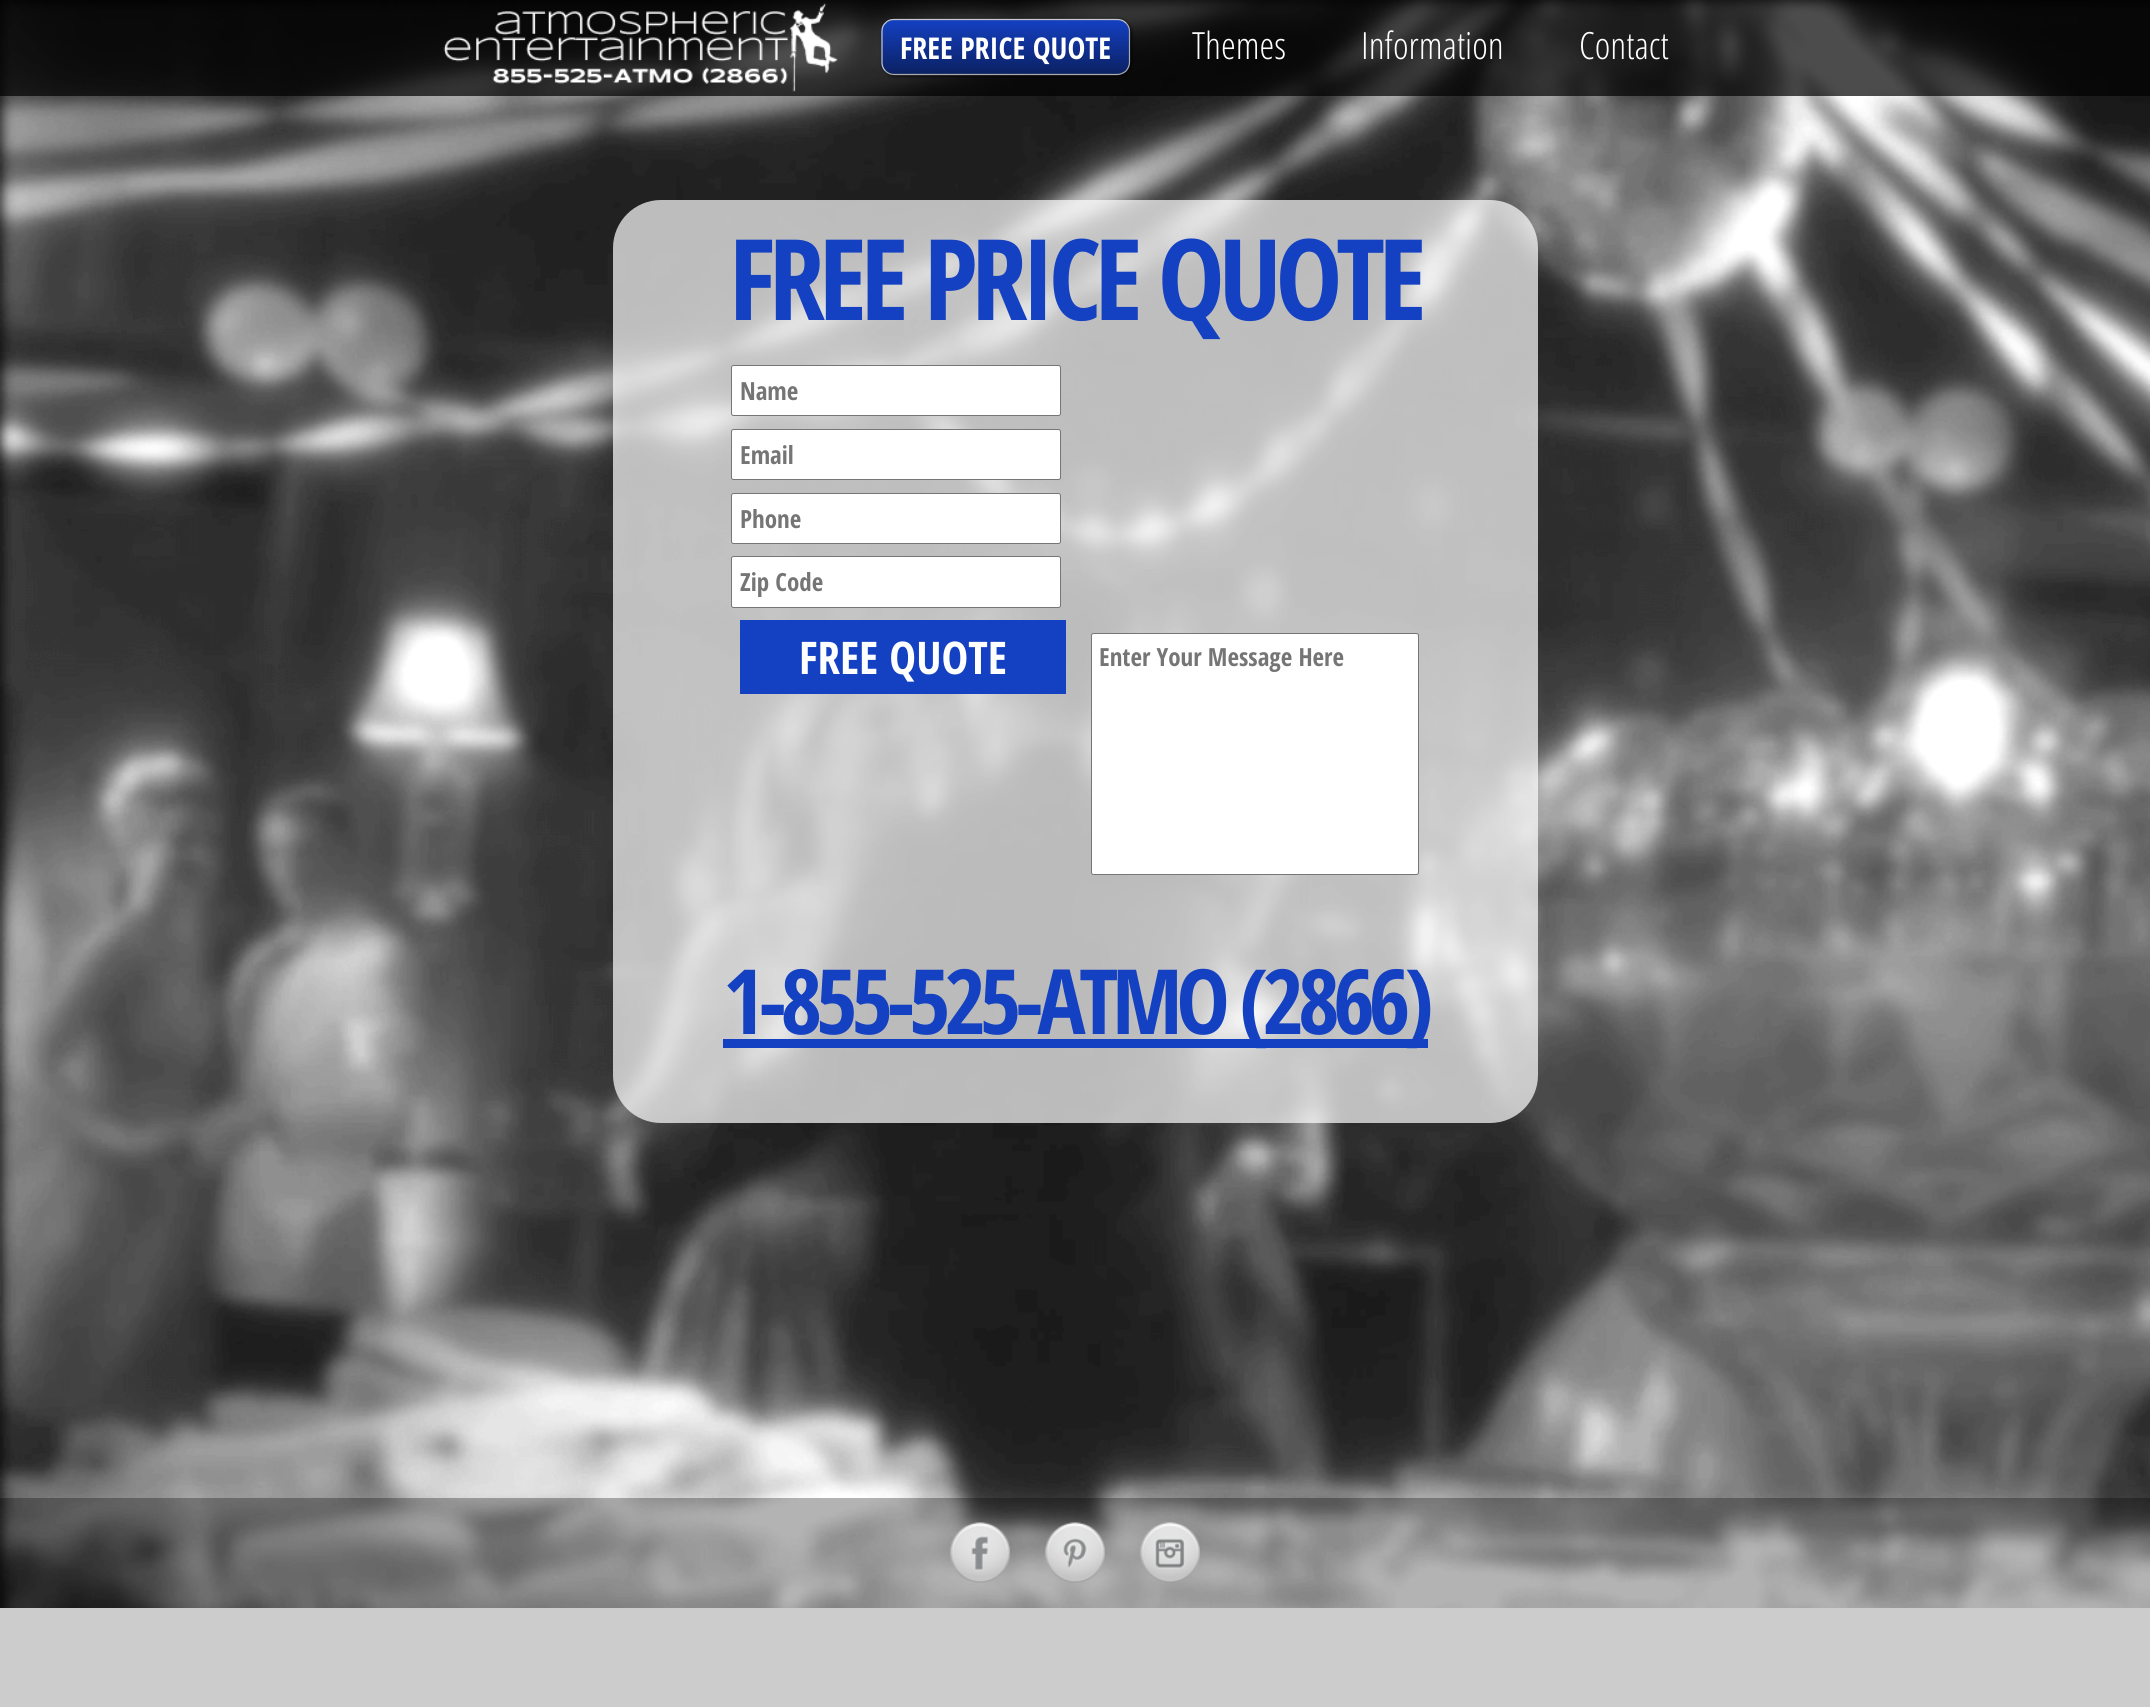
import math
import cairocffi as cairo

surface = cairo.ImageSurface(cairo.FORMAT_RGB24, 2150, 1707)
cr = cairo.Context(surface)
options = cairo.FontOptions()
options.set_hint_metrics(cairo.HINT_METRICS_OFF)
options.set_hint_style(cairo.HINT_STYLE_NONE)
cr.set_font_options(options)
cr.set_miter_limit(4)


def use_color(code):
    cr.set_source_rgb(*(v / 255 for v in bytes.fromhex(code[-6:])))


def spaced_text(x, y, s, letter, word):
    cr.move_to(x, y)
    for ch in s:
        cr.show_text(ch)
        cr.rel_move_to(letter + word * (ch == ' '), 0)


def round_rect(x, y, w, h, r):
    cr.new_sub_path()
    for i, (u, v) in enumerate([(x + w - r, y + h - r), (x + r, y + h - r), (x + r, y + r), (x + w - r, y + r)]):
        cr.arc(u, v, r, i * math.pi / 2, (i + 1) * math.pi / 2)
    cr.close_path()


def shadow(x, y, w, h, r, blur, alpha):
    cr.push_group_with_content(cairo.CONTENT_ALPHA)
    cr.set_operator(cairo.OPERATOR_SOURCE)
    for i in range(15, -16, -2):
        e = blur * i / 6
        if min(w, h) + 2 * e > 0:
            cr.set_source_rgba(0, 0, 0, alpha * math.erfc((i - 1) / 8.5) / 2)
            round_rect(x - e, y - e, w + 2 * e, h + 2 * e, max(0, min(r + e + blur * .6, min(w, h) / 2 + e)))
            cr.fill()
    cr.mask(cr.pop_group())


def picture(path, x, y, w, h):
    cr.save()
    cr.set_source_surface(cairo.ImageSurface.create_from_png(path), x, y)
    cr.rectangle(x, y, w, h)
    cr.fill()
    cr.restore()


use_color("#cccccc")
cr.paint()
picture("img1.png", 0, 0, 2150, 1608)
cr.set_source_rgba(0, 0, 0, 0.7)
cr.rectangle(0, 0, 2150, 96)
cr.fill()
picture("img2.png", 443, 3, 395, 89)
use_color("#000000")
shadow(883, 20, 248, 56, 13, 2, 1)
cr.save()
round_rect(881, 19, 249, 56, 13)
cr.clip()
gradient = cairo.LinearGradient(1006, 20, 1006, 74)
gradient.add_color_stop_rgba(0, 0.078, 0.251, 0.761, 1)
gradient.add_color_stop_rgba(1, 0.043, 0.129, 0.388, 1)
cr.set_source(gradient)
cr.rectangle(881, 20, 249, 54)
cr.fill()
cr.restore()
cr.new_path()
cr.move_to(1126, 23)
cr.curve_to(1128, 25, 1129.5, 28, 1129.5, 31)
cr.line_to(1129.5, 62.5)
cr.curve_to(1129.5, 65.5, 1128, 68.5, 1126, 71)
cr.curve_to(1123.5, 73, 1120.5, 74.5, 1117.5, 74.5)
cr.line_to(894, 74.5)
cr.curve_to(890.5, 74.5, 887.5, 73, 885.5, 71)
use_color("#aaaaaa")
cr.set_line_width(1.2)
cr.stroke()
cr.new_path()
cr.move_to(885.5, 71)
cr.curve_to(883, 68.5, 882, 65.5, 882, 62.5)
cr.line_to(882, 31.5)
cr.curve_to(882, 28, 883, 25, 885.5, 23)
cr.curve_to(887.5, 20.5, 890.5, 19.5, 894, 19.5)
cr.line_to(1117.5, 19.5)
cr.curve_to(1120.5, 19.5, 1123.5, 20.5, 1126, 23)
use_color("#c8c8c8")
cr.stroke()
cr.select_font_face("Open Sans Condensed", cairo.FONT_SLANT_NORMAL, cairo.FONT_WEIGHT_BOLD)
cr.set_font_size(30)
use_color("#ffffff")
cr.move_to(900, 59)
cr.show_text("FREE PRICE QUOTE")
cr.select_font_face("Open Sans Condensed Light")
cr.set_font_size(37.5)
cr.move_to(1192, 59)
cr.show_text("Themes")
cr.move_to(1361, 59)
cr.show_text("Information")
cr.move_to(1579, 59)
cr.show_text("Contact")
cr.set_source_rgba(1, 1, 1, 0.7)
round_rect(613, 200, 925, 923, 48)
cr.fill()
cr.select_font_face("Open Sans Condensed", cairo.FONT_SLANT_NORMAL, cairo.FONT_WEIGHT_BOLD)
cr.set_font_size(112.5)
use_color("#1440c2")
spaced_text(729, 320, "FREE PRICE QUOTE", -6.25, 0)
use_color("#ffffff")
round_rect(731.5, 365.5, 329, 50, 2)
cr.fill_preserve()
use_color("#767676")
cr.set_line_width(1)
cr.stroke()
cr.set_font_size(25)
use_color("#757575")
cr.move_to(740, 400)
cr.show_text("Name")
use_color("#ffffff")
round_rect(731.5, 429.5, 329, 50, 2)
cr.fill_preserve()
use_color("#767676")
cr.stroke()
use_color("#757575")
cr.move_to(740, 464)
cr.show_text("Email")
use_color("#ffffff")
round_rect(731.5, 493.5, 329, 50, 2)
cr.fill_preserve()
use_color("#767676")
cr.stroke()
use_color("#757575")
cr.move_to(740, 528)
cr.show_text("Phone")
use_color("#ffffff")
round_rect(731.5, 556.5, 329, 51, 2)
cr.fill_preserve()
use_color("#767676")
cr.stroke()
use_color("#757575")
cr.move_to(740, 591)
cr.show_text("Zip Code")
use_color("#1440c2")
cr.rectangle(740, 620, 326, 74)
cr.fill()
cr.set_font_size(45)
use_color("#ffffff")
cr.move_to(799, 674)
cr.show_text("FREE QUOTE")
round_rect(1091.5, 633.5, 327, 241, 2)
cr.fill_preserve()
use_color("#767676")
cr.stroke()
cr.set_font_size(25)
use_color("#757575")
cr.move_to(1099, 666)
cr.show_text("Enter Your Message Here")
use_color("#1440c2")
cr.rectangle(723, 1039, 705, 9)
cr.fill()
cr.set_font_size(90)
spaced_text(723, 1034, "1-855-525-ATMO (2866)", -6.25, 0)
cr.set_source_rgba(0, 0, 0, 0.3)
cr.rectangle(0, 1498, 2150, 110)
cr.fill()
picture("img3.png", 950, 1522, 60, 61)
picture("img4.png", 1045, 1522, 60, 61)
picture("img5.png", 1140, 1522, 60, 61)
surface.write_to_png("result.png")
